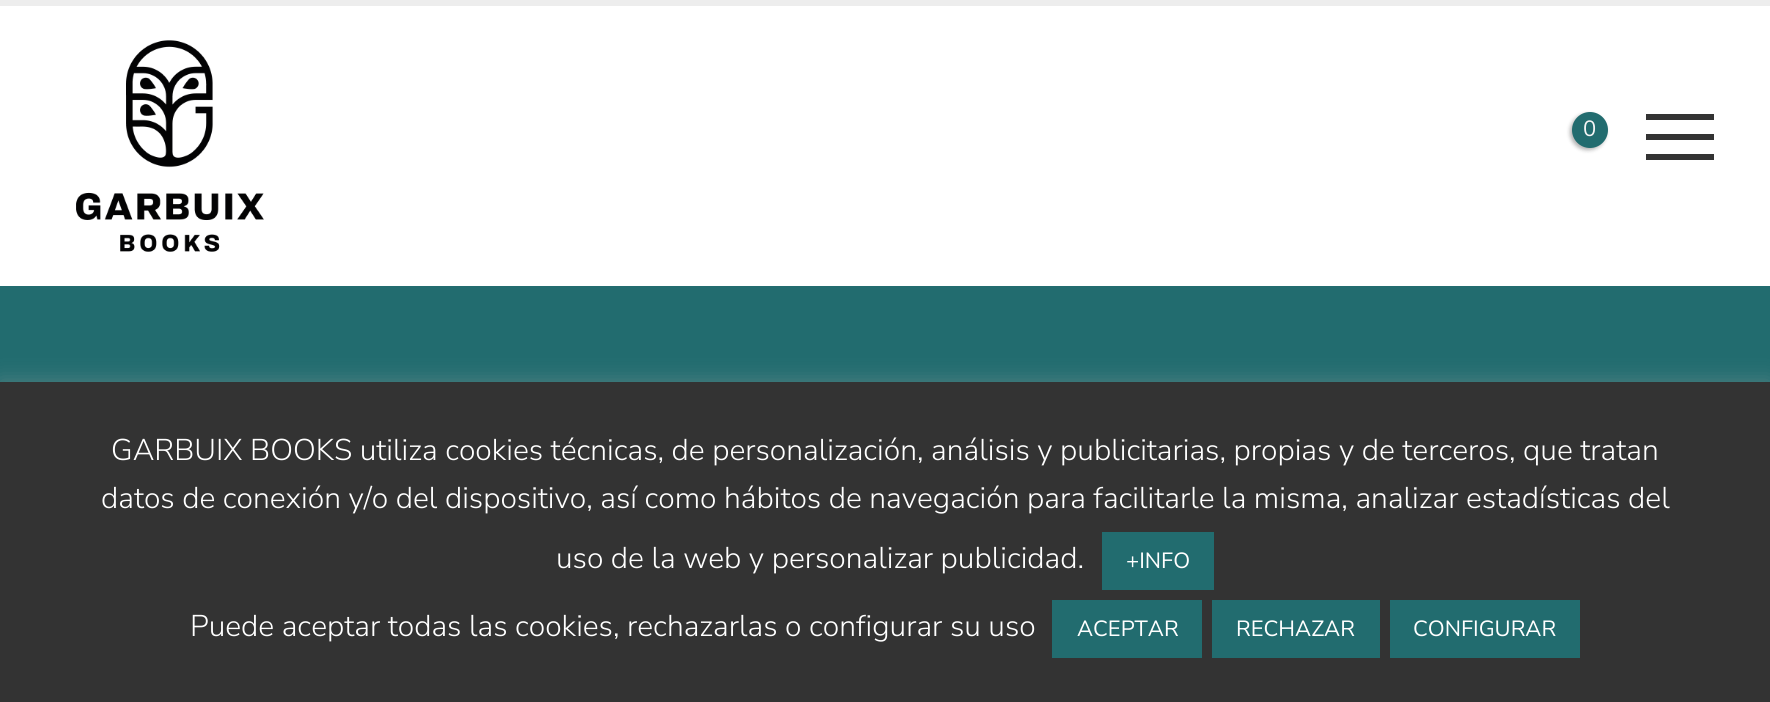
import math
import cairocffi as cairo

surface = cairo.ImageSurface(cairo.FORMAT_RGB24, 1770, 702)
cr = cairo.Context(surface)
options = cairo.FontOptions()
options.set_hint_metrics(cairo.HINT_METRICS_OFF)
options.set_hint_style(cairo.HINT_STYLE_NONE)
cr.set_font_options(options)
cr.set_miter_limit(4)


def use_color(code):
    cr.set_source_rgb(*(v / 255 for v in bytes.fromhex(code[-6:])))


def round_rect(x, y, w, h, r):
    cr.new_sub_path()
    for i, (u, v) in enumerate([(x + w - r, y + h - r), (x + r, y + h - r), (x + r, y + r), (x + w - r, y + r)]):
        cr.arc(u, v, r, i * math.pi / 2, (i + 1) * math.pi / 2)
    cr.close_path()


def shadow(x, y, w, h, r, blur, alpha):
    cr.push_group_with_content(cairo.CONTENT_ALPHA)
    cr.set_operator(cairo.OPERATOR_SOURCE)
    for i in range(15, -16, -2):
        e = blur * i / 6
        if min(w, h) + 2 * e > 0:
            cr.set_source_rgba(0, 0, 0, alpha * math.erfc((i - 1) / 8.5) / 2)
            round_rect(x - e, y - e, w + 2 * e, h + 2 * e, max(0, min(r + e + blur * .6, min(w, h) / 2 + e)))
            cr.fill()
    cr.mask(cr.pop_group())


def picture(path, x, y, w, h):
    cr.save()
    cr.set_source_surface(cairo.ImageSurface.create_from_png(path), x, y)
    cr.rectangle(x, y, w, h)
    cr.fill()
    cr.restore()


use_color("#ffffff")
cr.paint()
use_color("#ededed")
cr.rectangle(0, 0, 1770, 6)
cr.fill()
picture("img1.png", 76, 40, 188, 212)
use_color("#000000")
shadow(1570, 114, 36, 36, 18, 2, 0.3)
use_color("#226c6f")
cr.arc(1590, 130, 18, 0, 2 * math.pi)
cr.fill()
cr.select_font_face("Nunito Sans")
cr.set_font_size(22)
use_color("#f5f5f5")
cr.move_to(1583, 136)
cr.show_text("0")
use_color("#333333")
cr.rectangle(1646, 134, 68, 6)
cr.fill()
cr.rectangle(1646, 114, 68, 6)
cr.fill()
cr.rectangle(1646, 154, 68, 6)
cr.fill()
use_color("#226c6f")
cr.rectangle(0, 286, 1770, 96)
cr.fill()
use_color("#acabab")
shadow(0, 380, 1770, 320, 0, 10, 0.3)
use_color("#333333")
cr.rectangle(0, 382, 1770, 320)
cr.fill()
cr.select_font_face("Nunito Sans Light")
cr.set_font_size(30)
use_color("#ffffff")
cr.move_to(111, 460)
cr.show_text("GARBUIX BOOKS utiliza cookies técnicas, de personalización, análisis y publicitarias, propias y de terceros, que tratan")
cr.move_to(101, 508)
cr.show_text("datos de conexión y/o del dispositivo, así como hábitos de navegación para facilitarle la misma, analizar estadísticas del")
cr.move_to(556, 568)
cr.show_text("uso de la web y personalizar publicidad.")
use_color("#226c6f")
cr.rectangle(1102, 532, 112, 58)
cr.fill()
cr.select_font_face("Nunito Sans")
cr.set_font_size(22)
use_color("#ffffff")
cr.move_to(1126, 568)
cr.show_text("+INFO")
cr.select_font_face("Nunito Sans Light")
cr.set_font_size(30)
cr.move_to(190, 636)
cr.show_text("Puede aceptar todas las cookies, rechazarlas o configurar su uso")
use_color("#226c6f")
cr.rectangle(1052, 600, 150, 58)
cr.fill()
cr.select_font_face("Nunito Sans")
cr.set_font_size(22)
use_color("#ffffff")
cr.move_to(1077, 636)
cr.show_text("ACEPTAR")
use_color("#226c6f")
cr.rectangle(1212, 600, 168, 58)
cr.fill()
use_color("#ffffff")
cr.move_to(1236, 636)
cr.show_text("RECHAZAR")
use_color("#226c6f")
cr.rectangle(1390, 600, 190, 58)
cr.fill()
use_color("#ffffff")
cr.move_to(1413, 636)
cr.show_text("CONFIGURAR")
surface.write_to_png("result.png")
